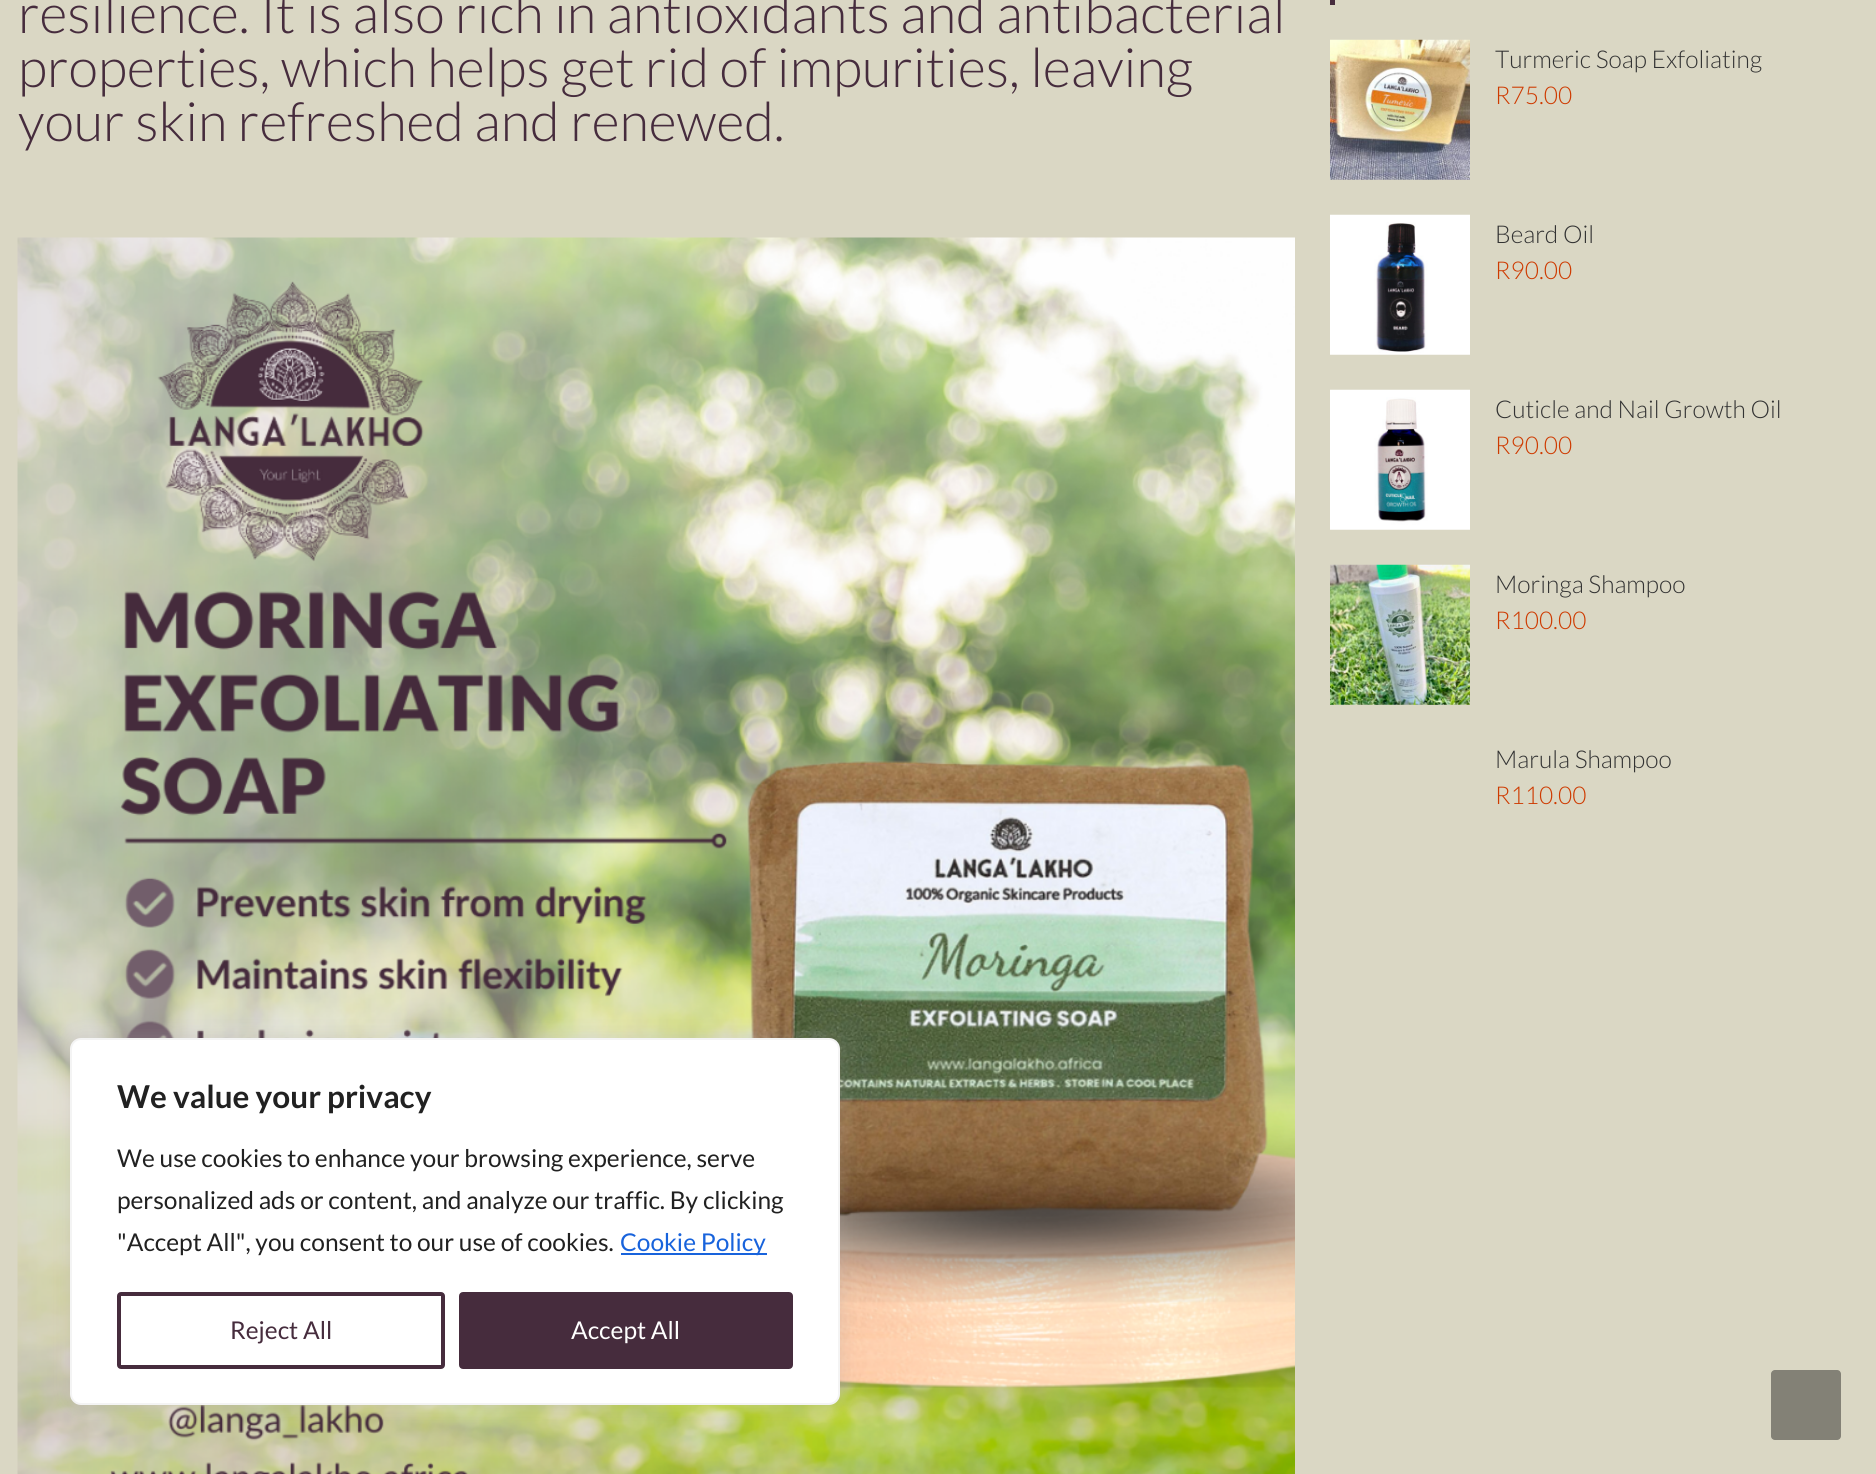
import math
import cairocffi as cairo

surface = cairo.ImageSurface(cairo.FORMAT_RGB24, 1876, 1474)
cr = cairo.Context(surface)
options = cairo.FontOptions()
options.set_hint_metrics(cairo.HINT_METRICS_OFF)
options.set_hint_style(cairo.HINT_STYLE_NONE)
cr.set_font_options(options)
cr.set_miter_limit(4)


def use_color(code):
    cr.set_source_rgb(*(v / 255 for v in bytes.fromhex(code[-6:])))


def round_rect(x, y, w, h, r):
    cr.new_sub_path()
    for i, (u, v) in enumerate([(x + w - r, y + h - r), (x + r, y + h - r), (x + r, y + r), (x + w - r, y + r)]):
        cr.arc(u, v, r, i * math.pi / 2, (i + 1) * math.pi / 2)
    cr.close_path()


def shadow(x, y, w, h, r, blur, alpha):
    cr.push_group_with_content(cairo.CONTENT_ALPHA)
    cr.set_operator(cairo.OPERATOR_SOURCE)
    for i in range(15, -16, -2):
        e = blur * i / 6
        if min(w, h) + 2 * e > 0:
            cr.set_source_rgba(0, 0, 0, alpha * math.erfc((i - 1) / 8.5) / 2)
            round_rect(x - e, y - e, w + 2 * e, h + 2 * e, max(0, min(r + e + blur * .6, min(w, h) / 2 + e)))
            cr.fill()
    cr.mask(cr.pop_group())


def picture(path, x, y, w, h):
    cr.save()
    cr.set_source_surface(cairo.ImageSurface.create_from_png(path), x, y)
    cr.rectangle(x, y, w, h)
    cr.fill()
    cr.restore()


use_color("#dad7c4")
cr.paint()
cr.select_font_face("Lato Light")
cr.set_font_size(54.25)
use_color("#462c3d")
cr.move_to(18, 33)
cr.show_text("resilience. It is also rich in antioxidants and antibacterial")
cr.move_to(18, 87)
cr.show_text("properties, which helps get rid of impurities, leaving")
cr.move_to(18, 141)
cr.show_text("your skin refreshed and renewed.")
picture("img1.png", 17, 237, 1278, 1237)
cr.rectangle(1330, 0, 5, 5)
cr.fill()
picture("img2.png", 1330, 39, 140, 141)
cr.set_font_size(24.5)
use_color("#333333")
cr.move_to(1495, 68)
cr.show_text("Turmeric Soap Exfoliating")
use_color("#ce3a00")
cr.move_to(1495, 104)
cr.show_text("R75.00")
picture("img3.png", 1330, 214, 140, 141)
use_color("#333333")
cr.move_to(1495, 243)
cr.show_text("Beard Oil")
use_color("#ce3a00")
cr.move_to(1495, 279)
cr.show_text("R90.00")
picture("img4.png", 1330, 389, 140, 141)
use_color("#333333")
cr.move_to(1495, 418)
cr.show_text("Cuticle and Nail Growth Oil")
use_color("#ce3a00")
cr.move_to(1495, 454)
cr.show_text("R90.00")
picture("img5.png", 1330, 564, 140, 141)
use_color("#333333")
cr.move_to(1495, 593)
cr.show_text("Moringa Shampoo")
use_color("#ce3a00")
cr.move_to(1495, 629)
cr.show_text("R100.00")
use_color("#333333")
cr.move_to(1495, 768)
cr.show_text("Marula Shampoo")
use_color("#ce3a00")
cr.move_to(1495, 804)
cr.show_text("R110.00")
use_color("#acabab")
shadow(70, 1036, 770, 368, 11, 9, 0.3)
use_color("#ffffff")
round_rect(71, 1039, 768, 365, 10)
cr.fill_preserve()
use_color("#f4f4f4")
cr.stroke()
cr.select_font_face("Lato", cairo.FONT_SLANT_NORMAL, cairo.FONT_WEIGHT_BOLD)
cr.set_font_size(31.5)
use_color("#212121")
cr.move_to(117, 1108)
cr.show_text("We value your privacy")
cr.select_font_face("Lato")
cr.set_font_size(24.5)
cr.move_to(117, 1167)
cr.show_text("We use cookies to enhance your browsing experience, serve")
cr.move_to(117, 1209)
cr.show_text("personalized ads or content, and analyze our traffic. By clicking")
cr.move_to(117, 1251)
cr.show_text("\"Accept All\", you consent to our use of cookies.")
use_color("#1863dc")
cr.rectangle(621, 1253, 146, 2)
cr.fill()
cr.move_to(620, 1251)
cr.show_text("Cookie Policy")
round_rect(119, 1294, 324, 73, 2)
use_color("#462c3d")
cr.set_line_width(4)
cr.stroke()
cr.move_to(230, 1339)
cr.show_text("Reject All")
round_rect(461, 1294, 330, 73, 2)
cr.fill_preserve()
cr.stroke()
use_color("#ffffff")
cr.move_to(571, 1339)
cr.show_text("Accept All")
use_color("#838176")
round_rect(1771, 1370, 70, 70, 4)
cr.fill()
surface.write_to_png("result.png")
